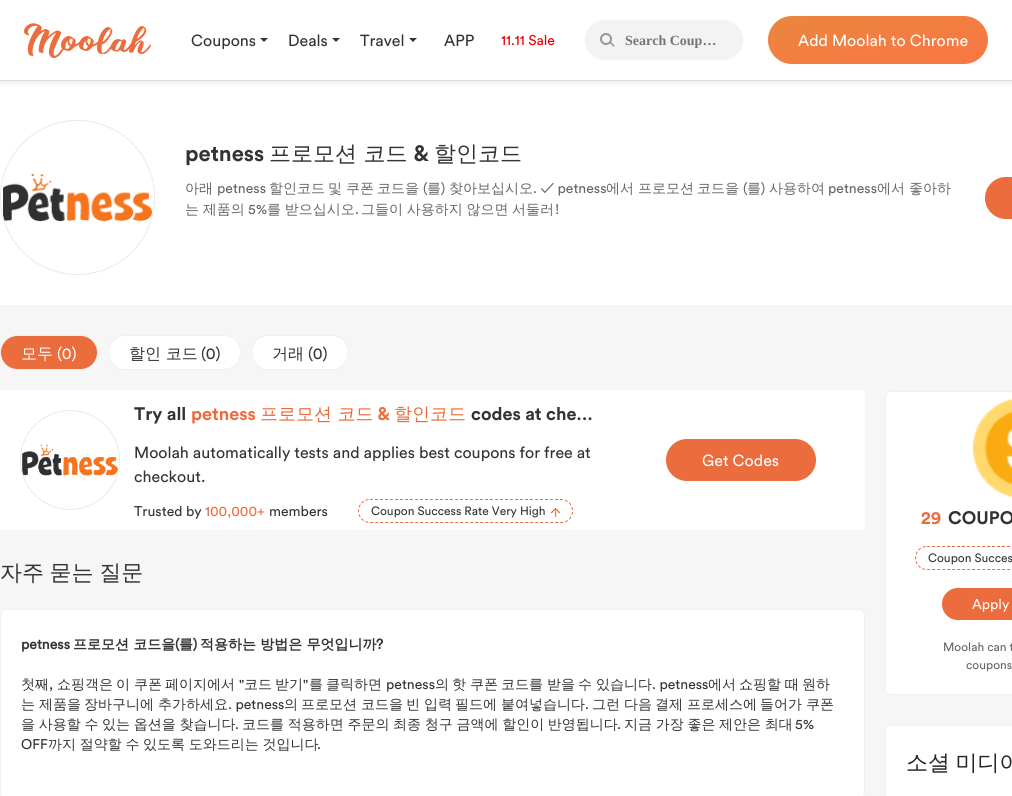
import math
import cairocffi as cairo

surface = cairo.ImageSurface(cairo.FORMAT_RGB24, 1012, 796)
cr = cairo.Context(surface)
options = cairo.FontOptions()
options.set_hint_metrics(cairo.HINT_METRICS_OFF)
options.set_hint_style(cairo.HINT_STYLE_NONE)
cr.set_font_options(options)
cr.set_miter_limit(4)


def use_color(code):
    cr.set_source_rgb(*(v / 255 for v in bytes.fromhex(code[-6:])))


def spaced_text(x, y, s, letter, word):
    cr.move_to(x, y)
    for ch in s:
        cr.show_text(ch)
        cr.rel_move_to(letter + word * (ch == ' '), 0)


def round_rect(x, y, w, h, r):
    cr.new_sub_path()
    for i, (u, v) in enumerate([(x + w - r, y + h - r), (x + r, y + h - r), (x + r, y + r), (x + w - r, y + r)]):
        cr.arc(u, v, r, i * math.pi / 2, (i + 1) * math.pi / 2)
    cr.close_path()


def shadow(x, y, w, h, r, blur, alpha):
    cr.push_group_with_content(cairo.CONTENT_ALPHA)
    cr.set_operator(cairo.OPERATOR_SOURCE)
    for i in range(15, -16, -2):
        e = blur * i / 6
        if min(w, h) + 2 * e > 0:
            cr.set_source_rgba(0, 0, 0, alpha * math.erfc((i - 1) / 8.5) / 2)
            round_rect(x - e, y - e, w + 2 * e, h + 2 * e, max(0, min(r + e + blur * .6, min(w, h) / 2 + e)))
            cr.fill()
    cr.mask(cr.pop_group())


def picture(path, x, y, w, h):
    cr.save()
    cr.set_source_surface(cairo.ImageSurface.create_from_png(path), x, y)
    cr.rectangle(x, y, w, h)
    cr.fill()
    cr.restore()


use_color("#ffffff")
cr.paint()
cr.save()
cr.rectangle(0, 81, 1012, 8)
cr.clip()
use_color("#dedede")
shadow(0, 1, 1012, 80, 0, 4, 1)
cr.restore()
use_color("#dedede")
cr.rectangle(0, 80, 1012, 1)
cr.fill()
picture("img1.png", 24, 23, 127, 35)
cr.select_font_face("Circular")
cr.set_font_size(16)
use_color("#333333")
cr.move_to(191, 46)
cr.show_text("Coupons")
cr.new_path()
cr.move_to(260, 38)
cr.line_to(268, 38)
cr.line_to(264, 42)
cr.close_path()
cr.fill()
cr.move_to(288, 46)
cr.show_text("Deals")
cr.new_path()
cr.move_to(332, 38)
cr.line_to(340, 38)
cr.line_to(336, 42)
cr.close_path()
cr.fill()
cr.move_to(360, 46)
cr.show_text("Travel")
cr.new_path()
cr.move_to(409, 38)
cr.line_to(417, 38)
cr.line_to(413, 42)
cr.close_path()
cr.fill()
cr.move_to(444, 46)
cr.show_text("APP")
cr.set_font_size(14)
use_color("#e40000")
cr.move_to(501, 45)
cr.show_text("11.11 Sale")
use_color("#f3f3f4")
round_rect(585, 20, 158, 40, 20)
cr.fill()
picture("img2.png", 600, 33, 15, 14)
cr.select_font_face("Liberation Serif", cairo.FONT_SLANT_NORMAL, cairo.FONT_WEIGHT_BOLD)
use_color("#757575")
cr.move_to(625, 45)
cr.show_text("Search Coup…")
gradient = cairo.LinearGradient(868, -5.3, 888, 85)
gradient.add_color_stop_rgba(0, 0.922, 0.525, 0.239, 1)
gradient.add_color_stop_rgba(1, 0.98, 0.463, 0.271, 1)
cr.set_source(gradient)
round_rect(768, 16, 220, 48, 24)
cr.fill()
cr.select_font_face("Circular")
cr.set_font_size(16)
use_color("#ffffff")
cr.move_to(798, 46)
cr.show_text("Add Moolah to Chrome")
cr.new_path()
cr.arc(77.5, 197.5, 77, 0, 2 * math.pi)
use_color("#e9e9e9")
cr.set_line_width(1)
cr.stroke()
picture("img3.png", 1, 174, 153, 48)
cr.select_font_face("Circular", cairo.FONT_SLANT_NORMAL, cairo.FONT_WEIGHT_BOLD)
cr.set_font_size(22)
use_color("#333333")
cr.move_to(185, 161)
cr.show_text("petness")
cr.select_font_face("WenQuanYi Zen Hei Medium")
cr.move_to(269, 161)
cr.show_text("프로모션 코드")
cr.select_font_face("Circular", cairo.FONT_SLANT_NORMAL, cairo.FONT_WEIGHT_BOLD)
cr.move_to(413, 161)
cr.show_text("&")
cr.select_font_face("WenQuanYi Zen Hei Medium")
cr.move_to(434, 161)
cr.show_text("할인코드")
cr.set_font_size(14)
use_color("#666666")
cr.move_to(185, 193)
cr.show_text("아래")
cr.select_font_face("Circular")
cr.move_to(217, 193)
cr.show_text("petness")
cr.select_font_face("WenQuanYi Zen Hei Medium")
cr.move_to(269, 193)
cr.show_text("할인코드")
cr.move_to(328, 193)
cr.show_text("및")
cr.move_to(346, 193)
cr.show_text("쿠폰")
cr.move_to(377, 193)
cr.show_text("코드을")
cr.select_font_face("Circular")
cr.move_to(423, 193)
cr.show_text("(")
cr.select_font_face("WenQuanYi Zen Hei Medium")
cr.move_to(427, 193)
cr.show_text("를")
cr.select_font_face("Circular")
cr.move_to(441, 193)
cr.show_text(")")
cr.select_font_face("WenQuanYi Zen Hei Medium")
cr.move_to(449, 193)
cr.show_text("찾아보십시오")
cr.select_font_face("Circular")
cr.move_to(533, 193)
cr.show_text(". ✓ petness")
cr.select_font_face("WenQuanYi Zen Hei Medium")
cr.move_to(606, 193)
cr.show_text("에서")
cr.move_to(638, 193)
cr.show_text("프로모션")
cr.move_to(697, 193)
cr.show_text("코드을")
cr.select_font_face("Circular")
cr.move_to(743, 193)
cr.show_text("(")
cr.select_font_face("WenQuanYi Zen Hei Medium")
cr.move_to(747, 193)
cr.show_text("를")
cr.select_font_face("Circular")
cr.move_to(761, 193)
cr.show_text(")")
cr.select_font_face("WenQuanYi Zen Hei Medium")
cr.move_to(769, 193)
cr.show_text("사용하여")
cr.select_font_face("Circular")
cr.move_to(828, 193)
cr.show_text("petness")
cr.select_font_face("WenQuanYi Zen Hei Medium")
cr.move_to(877, 193)
cr.show_text("에서")
cr.move_to(909, 193)
cr.show_text("좋아하")
spaced_text(185, 214, "는 제품의", 0, -0.5)
cr.select_font_face("Circular")
cr.move_to(248, 214)
cr.show_text("5%")
cr.select_font_face("WenQuanYi Zen Hei Medium")
spaced_text(267, 214, "를 받으십시오", 0, -0.5)
cr.select_font_face("Circular")
cr.move_to(355, 214)
cr.show_text(".")
cr.select_font_face("WenQuanYi Zen Hei Medium")
spaced_text(361, 214, "그들이 사용하지 않으면 서둘러", 0, -0.5)
cr.select_font_face("Circular")
cr.move_to(555, 214)
cr.show_text("!")
use_color("#eb6c3d")
round_rect(985, 177, 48, 42, 21)
cr.fill()
use_color("#f6f6f6")
cr.rectangle(0, 305, 1012, 491)
cr.fill()
use_color("#eb6c3d")
round_rect(0.5, 335.5, 97, 34, 17)
cr.fill_preserve()
use_color("#f0f0f0")
cr.stroke()
cr.select_font_face("WenQuanYi Zen Hei Medium")
cr.set_font_size(16)
use_color("#ffffff")
cr.move_to(21, 359)
cr.show_text("모두")
cr.select_font_face("Circular")
cr.move_to(57, 359)
cr.show_text("(0)")
round_rect(108.5, 335.5, 132, 34, 17)
cr.fill_preserve()
use_color("#f0f0f0")
cr.stroke()
cr.select_font_face("WenQuanYi Zen Hei Medium")
use_color("#333333")
cr.move_to(129, 359)
cr.show_text("할인 코드")
cr.select_font_face("Circular")
cr.move_to(201, 359)
cr.show_text("(0)")
use_color("#ffffff")
round_rect(251.5, 335.5, 97, 34, 17)
cr.fill_preserve()
use_color("#f0f0f0")
cr.stroke()
cr.select_font_face("WenQuanYi Zen Hei Medium")
use_color("#333333")
cr.move_to(272, 359)
cr.show_text("거래")
cr.select_font_face("Circular")
cr.move_to(308, 359)
cr.show_text("(0)")
use_color("#ffffff")
round_rect(0, 390, 865, 140, 3)
cr.fill()
cr.arc(70, 460, 49.5, 0, 2 * math.pi)
use_color("#e9e9e9")
cr.stroke()
picture("img4.png", 21, 444, 98, 32)
cr.select_font_face("Circular", cairo.FONT_SLANT_NORMAL, cairo.FONT_WEIGHT_BOLD)
cr.set_font_size(18)
use_color("#333333")
cr.move_to(134, 420)
cr.show_text("Try all")
use_color("#ec6c3d")
cr.move_to(191, 420)
cr.show_text("petness")
cr.select_font_face("WenQuanYi Zen Hei Medium")
cr.move_to(260, 420)
cr.show_text("프로모션 코드")
cr.select_font_face("Circular", cairo.FONT_SLANT_NORMAL, cairo.FONT_WEIGHT_BOLD)
cr.move_to(377, 420)
cr.show_text("&")
cr.select_font_face("WenQuanYi Zen Hei Medium")
cr.move_to(394, 420)
cr.show_text("할인코드")
cr.select_font_face("Circular", cairo.FONT_SLANT_NORMAL, cairo.FONT_WEIGHT_BOLD)
use_color("#333333")
cr.move_to(471, 420)
cr.show_text("codes at che…")
cr.select_font_face("Circular")
cr.set_font_size(16)
cr.move_to(134, 458)
cr.show_text("Moolah automatically tests and applies best coupons for free at")
cr.move_to(134, 482)
cr.show_text("checkout.")
cr.set_font_size(14)
cr.move_to(134, 516)
cr.show_text("Trusted by")
use_color("#ec6c3d")
cr.move_to(205, 516)
cr.show_text("100,000+")
use_color("#333333")
cr.move_to(269, 516)
cr.show_text("members")
cr.new_path()
cr.move_to(370, 499.5)
cr.line_to(561, 499.5)
cr.curve_to(567.5, 499.5, 572.5, 504.5, 572.5, 511)
cr.curve_to(572.5, 517.5, 567.5, 522.5, 561, 522.5)
cr.line_to(370, 522.5)
cr.curve_to(363.5, 522.5, 358.5, 517.5, 358.5, 511)
cr.curve_to(358.5, 504.5, 363.5, 499.5, 370, 499.5)
cr.close_path()
use_color("#ec6c3d")
cr.set_dash([3, 2])
cr.stroke()
cr.set_font_size(12)
use_color("#333333")
cr.move_to(371, 515)
cr.show_text("Coupon Success Rate Very High")
picture("img5.png", 551, 508, 9, 9)
use_color("#eb6c3d")
round_rect(666, 439, 150, 42, 21)
cr.fill()
cr.set_font_size(16)
use_color("#ffffff")
cr.move_to(702, 466)
cr.show_text("Get Codes")
cr.select_font_face("WenQuanYi Zen Hei Medium")
cr.set_font_size(22)
use_color("#333333")
spaced_text(0, 580, "자주 묻는 질문", 0, -1)
use_color("#ffffff")
round_rect(0.5, 609.5, 864, 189, 5.5)
cr.fill_preserve()
use_color("#f0f0f0")
cr.set_dash([])
cr.stroke()
cr.select_font_face("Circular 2", cairo.FONT_SLANT_NORMAL, cairo.FONT_WEIGHT_BOLD)
cr.set_font_size(14)
use_color("#333333")
cr.move_to(21, 649)
cr.show_text("petness")
cr.select_font_face("WenQuanYi Zen Hei", cairo.FONT_SLANT_NORMAL, cairo.FONT_WEIGHT_BOLD)
cr.move_to(73, 649)
cr.show_text("프로모션 코드을")
cr.select_font_face("Circular 2", cairo.FONT_SLANT_NORMAL, cairo.FONT_WEIGHT_BOLD)
cr.move_to(175, 649)
cr.show_text("(")
cr.select_font_face("WenQuanYi Zen Hei", cairo.FONT_SLANT_NORMAL, cairo.FONT_WEIGHT_BOLD)
cr.move_to(179, 649)
cr.show_text("를")
cr.select_font_face("Circular 2", cairo.FONT_SLANT_NORMAL, cairo.FONT_WEIGHT_BOLD)
cr.move_to(193, 649)
cr.show_text(")")
cr.select_font_face("WenQuanYi Zen Hei", cairo.FONT_SLANT_NORMAL, cairo.FONT_WEIGHT_BOLD)
cr.move_to(200, 649)
cr.show_text("적용하는 방법은 무엇입니까")
cr.select_font_face("Circular 2", cairo.FONT_SLANT_NORMAL, cairo.FONT_WEIGHT_BOLD)
cr.move_to(376, 649)
cr.show_text("?")
cr.select_font_face("WenQuanYi Zen Hei Medium")
cr.move_to(21, 689)
cr.show_text("첫째")
cr.select_font_face("Circular")
cr.move_to(49, 689)
cr.show_text(",")
cr.select_font_face("WenQuanYi Zen Hei Medium")
cr.move_to(57, 689)
cr.show_text("쇼핑객은")
cr.move_to(116, 689)
cr.show_text("이")
cr.move_to(134, 689)
cr.show_text("쿠폰")
cr.move_to(165, 689)
cr.show_text("페이지에서")
cr.select_font_face("Circular")
cr.move_to(239, 689)
cr.show_text("\"")
cr.select_font_face("WenQuanYi Zen Hei Medium")
cr.move_to(244, 689)
cr.show_text("코드")
cr.move_to(275, 689)
cr.show_text("받기")
cr.select_font_face("Circular")
cr.move_to(303, 689)
cr.show_text("\"")
cr.select_font_face("WenQuanYi Zen Hei Medium")
cr.move_to(309, 689)
cr.show_text("를")
cr.move_to(326, 689)
cr.show_text("클릭하면")
cr.select_font_face("Circular")
cr.move_to(386, 689)
cr.show_text("petness")
cr.select_font_face("WenQuanYi Zen Hei Medium")
cr.move_to(435, 689)
cr.show_text("의")
cr.move_to(452, 689)
cr.show_text("핫")
cr.move_to(470, 689)
cr.show_text("쿠폰")
cr.move_to(501, 689)
cr.show_text("코드를")
cr.move_to(547, 689)
cr.show_text("받을")
cr.move_to(578, 689)
cr.show_text("수")
cr.move_to(596, 689)
cr.show_text("있습니다")
cr.select_font_face("Circular")
cr.move_to(652, 689)
cr.show_text(". petness")
cr.select_font_face("WenQuanYi Zen Hei Medium")
cr.move_to(708, 689)
cr.show_text("에서")
cr.move_to(739, 689)
cr.show_text("쇼핑할")
cr.move_to(785, 689)
cr.show_text("때")
cr.move_to(802, 689)
cr.show_text("원하")
cr.move_to(21, 709)
cr.show_text("는")
cr.move_to(39, 709)
cr.show_text("제품을")
cr.move_to(84, 709)
cr.show_text("장바구니에")
cr.move_to(158, 709)
cr.show_text("추가하세요")
cr.select_font_face("Circular")
cr.move_to(228, 709)
cr.show_text(". petness")
cr.select_font_face("WenQuanYi Zen Hei Medium")
cr.move_to(284, 709)
cr.show_text("의")
cr.move_to(301, 709)
cr.show_text("프로모션")
cr.move_to(361, 709)
cr.show_text("코드을")
cr.move_to(406, 709)
cr.show_text("빈")
cr.move_to(424, 709)
cr.show_text("입력")
cr.move_to(455, 709)
cr.show_text("필드에")
cr.move_to(501, 709)
cr.show_text("붙여넣습니다")
cr.select_font_face("Circular")
cr.move_to(585, 709)
cr.show_text(".")
cr.select_font_face("WenQuanYi Zen Hei Medium")
cr.move_to(592, 709)
cr.show_text("그런")
cr.move_to(624, 709)
cr.show_text("다음")
cr.move_to(655, 709)
cr.show_text("결제")
cr.move_to(687, 709)
cr.show_text("프로세스에")
cr.move_to(760, 709)
cr.show_text("들어가")
cr.move_to(806, 709)
cr.show_text("쿠폰")
spaced_text(21, 729, "을 사용할 수 있는 옵션을 찾습니다", 0, -0.5)
cr.select_font_face("Circular")
cr.move_to(235, 729)
cr.show_text(".")
cr.select_font_face("WenQuanYi Zen Hei Medium")
spaced_text(242, 729, "코드를 적용하면 주문의 최종 청구 금액에 할인이 반영됩니다", 0, -0.5)
cr.select_font_face("Circular")
cr.move_to(617, 729)
cr.show_text(".")
cr.select_font_face("WenQuanYi Zen Hei Medium")
spaced_text(624, 729, "지금 가장 좋은 제안은 최대", 0, -0.5)
cr.select_font_face("Circular")
cr.move_to(795, 729)
cr.show_text("5%")
cr.move_to(21, 749)
cr.show_text("OFF")
cr.select_font_face("WenQuanYi Zen Hei Medium")
spaced_text(48, 749, "까지 절약할 수 있도록 도와드리는 것입니다", 0, -0.5)
cr.select_font_face("Circular")
cr.move_to(317, 749)
cr.show_text(".")
use_color("#ffffff")
cr.new_path()
cr.move_to(891, 391)
cr.line_to(1012, 391)
cr.line_to(1012, 695)
cr.line_to(891, 695)
cr.curve_to(887.5, 695, 885, 692.5, 885, 689)
cr.line_to(885, 397)
cr.curve_to(885, 393.5, 887.5, 391, 891, 391)
cr.close_path()
cr.fill()
round_rect(885.5, 391.5, 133, 303, 5.5)
use_color("#f0f0f0")
cr.stroke()
picture("img6.png", 973, 398, 39, 100)
cr.select_font_face("Circular", cairo.FONT_SLANT_NORMAL, cairo.FONT_WEIGHT_BOLD)
cr.set_font_size(18)
use_color("#ec6c3d")
cr.move_to(921, 524)
cr.show_text("29")
use_color("#333333")
cr.move_to(948, 524)
cr.show_text("COUPO")
cr.new_path()
cr.move_to(927, 546.5)
cr.line_to(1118, 546.5)
cr.curve_to(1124.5, 546.5, 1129.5, 551.5, 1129.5, 558)
cr.curve_to(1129.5, 564.5, 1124.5, 569.5, 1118, 569.5)
cr.line_to(927, 569.5)
cr.curve_to(920.5, 569.5, 915.5, 564.5, 915.5, 558)
cr.curve_to(915.5, 551.5, 920.5, 546.5, 927, 546.5)
cr.close_path()
use_color("#ec6c3d")
cr.set_dash([3, 2])
cr.stroke()
cr.select_font_face("Circular")
cr.set_font_size(12)
use_color("#333333")
cr.move_to(928, 562)
cr.show_text("Coupon Succes")
use_color("#ec6c3d")
cr.new_path()
cr.move_to(958, 588)
cr.line_to(1012, 588)
cr.line_to(1012, 620)
cr.line_to(958, 620)
cr.curve_to(949, 620, 942, 613, 942, 604)
cr.curve_to(942, 595, 949, 588, 958, 588)
cr.close_path()
cr.fill()
cr.set_font_size(14)
use_color("#ffffff")
cr.move_to(972, 609)
cr.show_text("Apply")
cr.set_font_size(12)
use_color("#666666")
cr.move_to(943, 651)
cr.show_text("Moolah can t")
cr.move_to(966, 669)
cr.show_text("coupons")
use_color("#ffffff")
cr.new_path()
cr.move_to(891, 725)
cr.line_to(1012, 725)
cr.line_to(1012, 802)
cr.line_to(891, 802)
cr.curve_to(887.5, 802, 885, 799.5, 885, 796)
cr.line_to(885, 731)
cr.curve_to(885, 727.5, 887.5, 725, 891, 725)
cr.close_path()
cr.fill()
round_rect(885.5, 725.5, 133, 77, 5.5)
use_color("#f0f0f0")
cr.set_dash([])
cr.stroke()
cr.select_font_face("WenQuanYi Zen Hei Medium")
cr.set_font_size(22)
use_color("#212529")
spaced_text(906, 770, "소셜 미디어", 0, -1)
surface.write_to_png("result.png")
